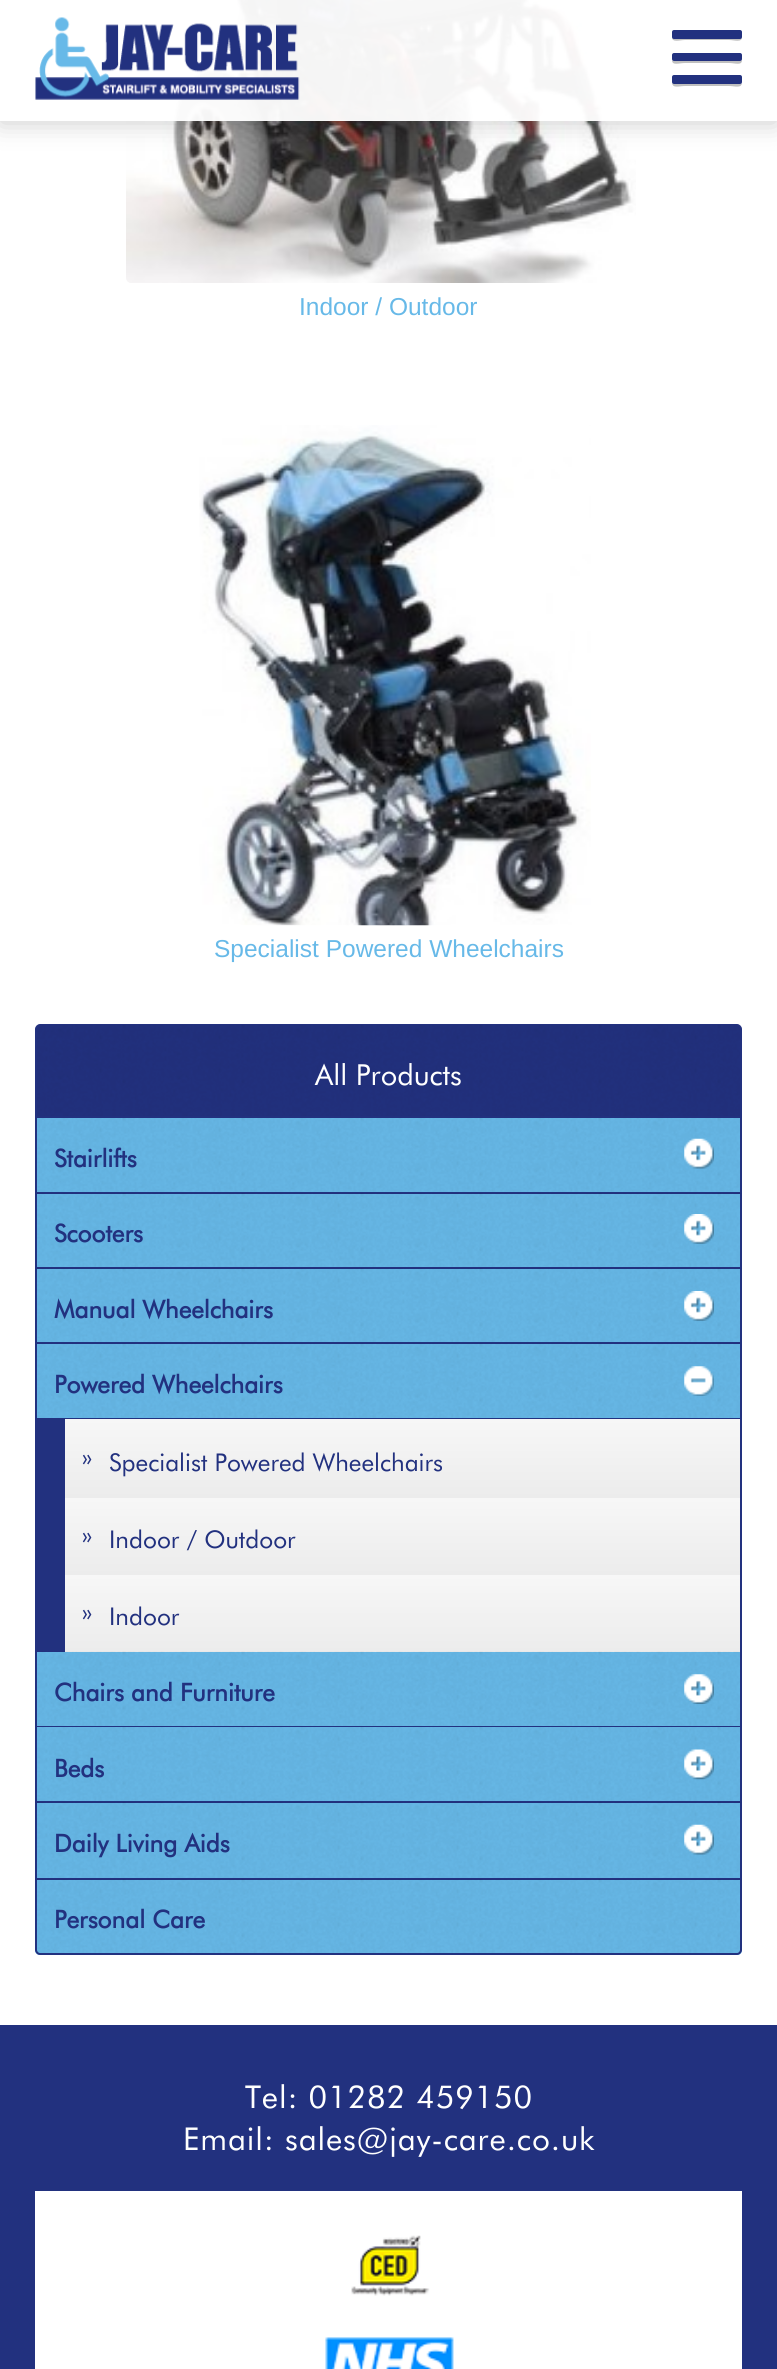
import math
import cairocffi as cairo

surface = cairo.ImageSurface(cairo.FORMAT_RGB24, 777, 2369)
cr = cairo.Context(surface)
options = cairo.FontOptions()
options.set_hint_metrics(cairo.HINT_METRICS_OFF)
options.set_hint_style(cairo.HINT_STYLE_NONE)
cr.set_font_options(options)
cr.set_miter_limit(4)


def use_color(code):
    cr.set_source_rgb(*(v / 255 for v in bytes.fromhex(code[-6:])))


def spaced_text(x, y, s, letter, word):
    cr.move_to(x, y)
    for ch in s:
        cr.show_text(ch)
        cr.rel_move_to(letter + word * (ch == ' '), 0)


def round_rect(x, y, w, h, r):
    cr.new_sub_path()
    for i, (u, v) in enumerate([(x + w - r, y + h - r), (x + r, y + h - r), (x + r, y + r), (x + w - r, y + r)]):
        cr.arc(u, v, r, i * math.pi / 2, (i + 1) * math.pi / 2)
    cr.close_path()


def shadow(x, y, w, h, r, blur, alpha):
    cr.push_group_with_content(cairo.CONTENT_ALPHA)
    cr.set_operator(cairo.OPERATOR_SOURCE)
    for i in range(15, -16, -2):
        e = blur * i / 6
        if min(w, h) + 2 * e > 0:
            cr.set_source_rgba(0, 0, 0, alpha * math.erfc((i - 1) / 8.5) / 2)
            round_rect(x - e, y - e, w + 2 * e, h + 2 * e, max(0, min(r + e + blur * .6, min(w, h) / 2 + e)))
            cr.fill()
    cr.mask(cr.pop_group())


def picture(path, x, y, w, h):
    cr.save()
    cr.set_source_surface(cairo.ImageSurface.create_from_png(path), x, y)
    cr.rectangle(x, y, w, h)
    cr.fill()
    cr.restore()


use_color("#ffffff")
cr.paint()
picture("img2.png", 126, 0, 510, 283)
cr.save()
cr.set_fill_rule(cairo.FILL_RULE_EVEN_ODD)
cr.new_path()
cr.move_to(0, 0)
cr.line_to(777, 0)
cr.line_to(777, 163)
cr.line_to(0, 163)
cr.close_path()
cr.move_to(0, 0)
cr.line_to(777, 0)
cr.line_to(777, 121)
cr.line_to(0, 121)
cr.close_path()
cr.clip()
use_color("#000000")
shadow(0, 2, 777, 121, 0, 13, 0.2)
cr.restore()
cr.set_source_rgba(1, 1, 1, 0.95)
cr.rectangle(0, 0, 777, 121)
cr.fill()
use_color("#bfbfbf")
cr.new_path()
cr.move_to(672, 37)
cr.curve_to(672, 43, 680, 40, 685, 40)
cr.line_to(729, 40)
cr.curve_to(734, 40, 742, 43, 742, 37)
cr.curve_to(742, 38, 741, 38, 740, 38)
cr.line_to(674, 38)
cr.curve_to(673, 38, 672, 38, 672, 37)
cr.close_path()
cr.fill()
use_color("#22317f")
round_rect(672, 30, 70, 9, 2)
cr.fill()
use_color("#bfbfbf")
cr.new_path()
cr.move_to(672, 60)
cr.curve_to(672, 66, 679, 63, 685, 63)
cr.line_to(729, 63)
cr.curve_to(735, 63, 742, 66, 742, 60)
cr.curve_to(742, 60, 741, 61, 740, 61)
cr.line_to(674, 61)
cr.curve_to(673, 61, 672, 60, 672, 60)
cr.close_path()
cr.fill()
use_color("#22317f")
round_rect(672, 53, 70, 8, 2)
cr.fill()
use_color("#bfbfbf")
cr.new_path()
cr.move_to(672, 82)
cr.curve_to(672, 89, 679, 86, 685, 86)
cr.line_to(729, 86)
cr.curve_to(735, 86, 742, 89, 742, 82)
cr.curve_to(742, 83, 741, 84, 740, 84)
cr.line_to(674, 84)
cr.curve_to(673, 84, 672, 83, 672, 82)
cr.close_path()
cr.fill()
use_color("#22317f")
round_rect(672, 75, 70, 9, 2)
cr.fill()
picture("img1.png", 35, 17, 265, 83)
cr.select_font_face("Liberation Sans")
cr.set_font_size(24.5)
use_color("#67b9e8")
cr.move_to(299, 315)
cr.show_text("Indoor / Outdoor")
picture("img3.png", 199, 425, 392, 501)
cr.move_to(214, 957)
cr.show_text("Specialist Powered Wheelchairs")
use_color("#22317f")
cr.new_path()
cr.move_to(40, 1025)
cr.line_to(737, 1025)
cr.curve_to(739, 1025, 741, 1027, 741, 1029)
cr.line_to(741, 1117)
cr.line_to(36, 1117)
cr.line_to(36, 1029)
cr.curve_to(36, 1027, 38, 1025, 40, 1025)
cr.close_path()
cr.fill_preserve()
cr.stroke()
picture("img4.png", 37, 1025, 703, 91)
cr.select_font_face("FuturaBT")
cr.set_font_size(29)
use_color("#ffffff")
cr.move_to(315, 1085)
cr.show_text("All Products")
use_color("#67b9e8")
cr.rectangle(37, 1118, 703, 74)
cr.fill()
picture("img5.png", 37, 1118, 703, 74)
use_color("#22317f")
cr.rectangle(740, 1118, 2, 76)
cr.fill()
cr.rectangle(35, 1192, 707, 2)
cr.fill()
cr.rectangle(35, 1118, 2, 76)
cr.fill()
picture("img6.png", 684, 1138, 30, 31)
cr.select_font_face("FuturaBT", cairo.FONT_SLANT_NORMAL, cairo.FONT_WEIGHT_BOLD)
cr.set_font_size(24.5)
cr.move_to(54, 1167)
cr.show_text("Stairlifts")
use_color("#67b9e8")
cr.rectangle(37, 1194, 703, 73)
cr.fill()
picture("img7.png", 35, 1193, 707, 74)
use_color("#22317f")
cr.rectangle(740, 1194, 2, 75)
cr.fill()
cr.rectangle(35, 1267, 707, 2)
cr.fill()
cr.rectangle(35, 1194, 2, 75)
cr.fill()
picture("img8.png", 684, 1214, 30, 30)
cr.move_to(54, 1242)
cr.show_text("Scooters")
use_color("#67b9e8")
cr.rectangle(37, 1269, 703, 73)
cr.fill()
picture("img9.png", 35, 1268, 707, 74)
use_color("#22317f")
cr.rectangle(740, 1269, 2, 150)
cr.fill()
cr.rectangle(35, 1342, 707, 2)
cr.fill()
cr.rectangle(35, 1269, 2, 75)
cr.fill()
picture("img10.png", 684, 1291, 30, 30)
cr.move_to(54, 1318)
cr.show_text("Manual Wheelchairs")
use_color("#67b9e8")
cr.rectangle(37, 1344, 703, 74)
cr.fill()
picture("img11.png", 37, 1343, 703, 75)
use_color("#22317f")
cr.rectangle(35, 1418, 707, 234)
cr.fill()
cr.rectangle(35, 1344, 2, 75)
cr.fill()
picture("img12.png", 684, 1366, 30, 30)
cr.move_to(54, 1393)
cr.show_text("Powered Wheelchairs")
gradient = cairo.LinearGradient(403, 1419, 403, 1498)
gradient.add_color_stop_rgba(0, 0.969, 0.969, 0.969, 1)
gradient.add_color_stop_rgba(1, 0.925, 0.925, 0.925, 1)
cr.set_source(gradient)
cr.rectangle(65, 1419, 675, 79)
cr.fill()
cr.select_font_face("FuturaBT")
use_color("#22317f")
cr.move_to(82, 1465)
cr.show_text("»")
cr.move_to(109, 1471)
cr.show_text("Specialist Powered Wheelchairs")
gradient = cairo.LinearGradient(403, 1498, 403, 1575)
gradient.add_color_stop_rgba(0, 0.969, 0.969, 0.969, 1)
gradient.add_color_stop_rgba(1, 0.925, 0.925, 0.925, 1)
cr.set_source(gradient)
cr.rectangle(65, 1498, 675, 77)
cr.fill()
use_color("#22317f")
cr.move_to(82, 1543)
cr.show_text("»")
cr.move_to(109, 1548)
cr.show_text("Indoor / Outdoor")
gradient = cairo.LinearGradient(403, 1575, 403, 1652)
gradient.add_color_stop_rgba(0, 0.969, 0.969, 0.969, 1)
gradient.add_color_stop_rgba(1, 0.925, 0.925, 0.925, 1)
cr.set_source(gradient)
cr.rectangle(65, 1575, 675, 77)
cr.fill()
use_color("#22317f")
cr.move_to(82, 1620)
cr.show_text("»")
cr.move_to(109, 1625)
cr.show_text("Indoor")
use_color("#67b9e8")
cr.rectangle(37, 1652, 703, 74)
cr.fill()
picture("img13.png", 37, 1651, 703, 75)
use_color("#22317f")
cr.rectangle(740, 1652, 2, 151)
cr.fill()
cr.rectangle(35, 1726, 707, 1)
cr.fill()
cr.rectangle(35, 1652, 2, 75)
cr.fill()
picture("img14.png", 684, 1674, 30, 30)
cr.select_font_face("FuturaBT", cairo.FONT_SLANT_NORMAL, cairo.FONT_WEIGHT_BOLD)
cr.move_to(54, 1701)
cr.show_text("Chairs and Furniture")
use_color("#67b9e8")
cr.rectangle(37, 1727, 703, 74)
cr.fill()
picture("img15.png", 37, 1727, 703, 74)
use_color("#22317f")
cr.rectangle(35, 1801, 707, 2)
cr.fill()
cr.rectangle(35, 1727, 2, 76)
cr.fill()
picture("img16.png", 684, 1749, 30, 31)
cr.move_to(54, 1777)
cr.show_text("Beds")
use_color("#67b9e8")
cr.rectangle(37, 1803, 703, 75)
cr.fill()
picture("img17.png", 35, 1802, 707, 76)
use_color("#22317f")
cr.rectangle(740, 1803, 2, 77)
cr.fill()
cr.rectangle(35, 1878, 707, 2)
cr.fill()
cr.rectangle(35, 1803, 2, 77)
cr.fill()
picture("img18.png", 684, 1824, 30, 31)
cr.move_to(54, 1852)
cr.show_text("Daily Living Aids")
use_color("#67b9e8")
cr.new_path()
cr.move_to(35, 1880)
cr.line_to(742, 1880)
cr.line_to(742, 1950)
cr.curve_to(742, 1953, 740, 1955, 737, 1955)
cr.line_to(40, 1955)
cr.curve_to(37, 1955, 35, 1953, 35, 1950)
cr.close_path()
cr.fill()
picture("img19.png", 35, 1879, 707, 74)
use_color("#22317f")
cr.set_fill_rule(cairo.FILL_RULE_EVEN_ODD)
cr.new_path()
cr.move_to(35, 1880)
cr.line_to(742, 1880)
cr.line_to(742, 1950)
cr.curve_to(742, 1952, 740, 1955, 737, 1955)
cr.line_to(40, 1955)
cr.curve_to(37, 1955, 35, 1952, 35, 1950)
cr.close_path()
cr.move_to(37, 1880)
cr.line_to(740, 1880)
cr.line_to(740, 1950)
cr.curve_to(740, 1951, 739, 1953, 737, 1953)
cr.line_to(40, 1953)
cr.curve_to(38, 1953, 37, 1951, 37, 1950)
cr.close_path()
cr.fill()
cr.move_to(54, 1928)
cr.show_text("Personal Care")
cr.rectangle(0, 2025, 777, 344)
cr.fill()
cr.select_font_face("FuturaBT")
cr.set_font_size(31.5)
use_color("#ffffff")
spaced_text(245, 2108, "Tel: 01282 459150", 0.9, 0)
spaced_text(183, 2150, "Email: sales@jay-care.co.uk", 0.9, 0)
cr.rectangle(35, 2191, 707, 178)
cr.fill()
picture("img20.png", 351, 2235, 79, 61)
picture("img21.png", 325, 2337, 129, 32)
surface.write_to_png("result.png")
